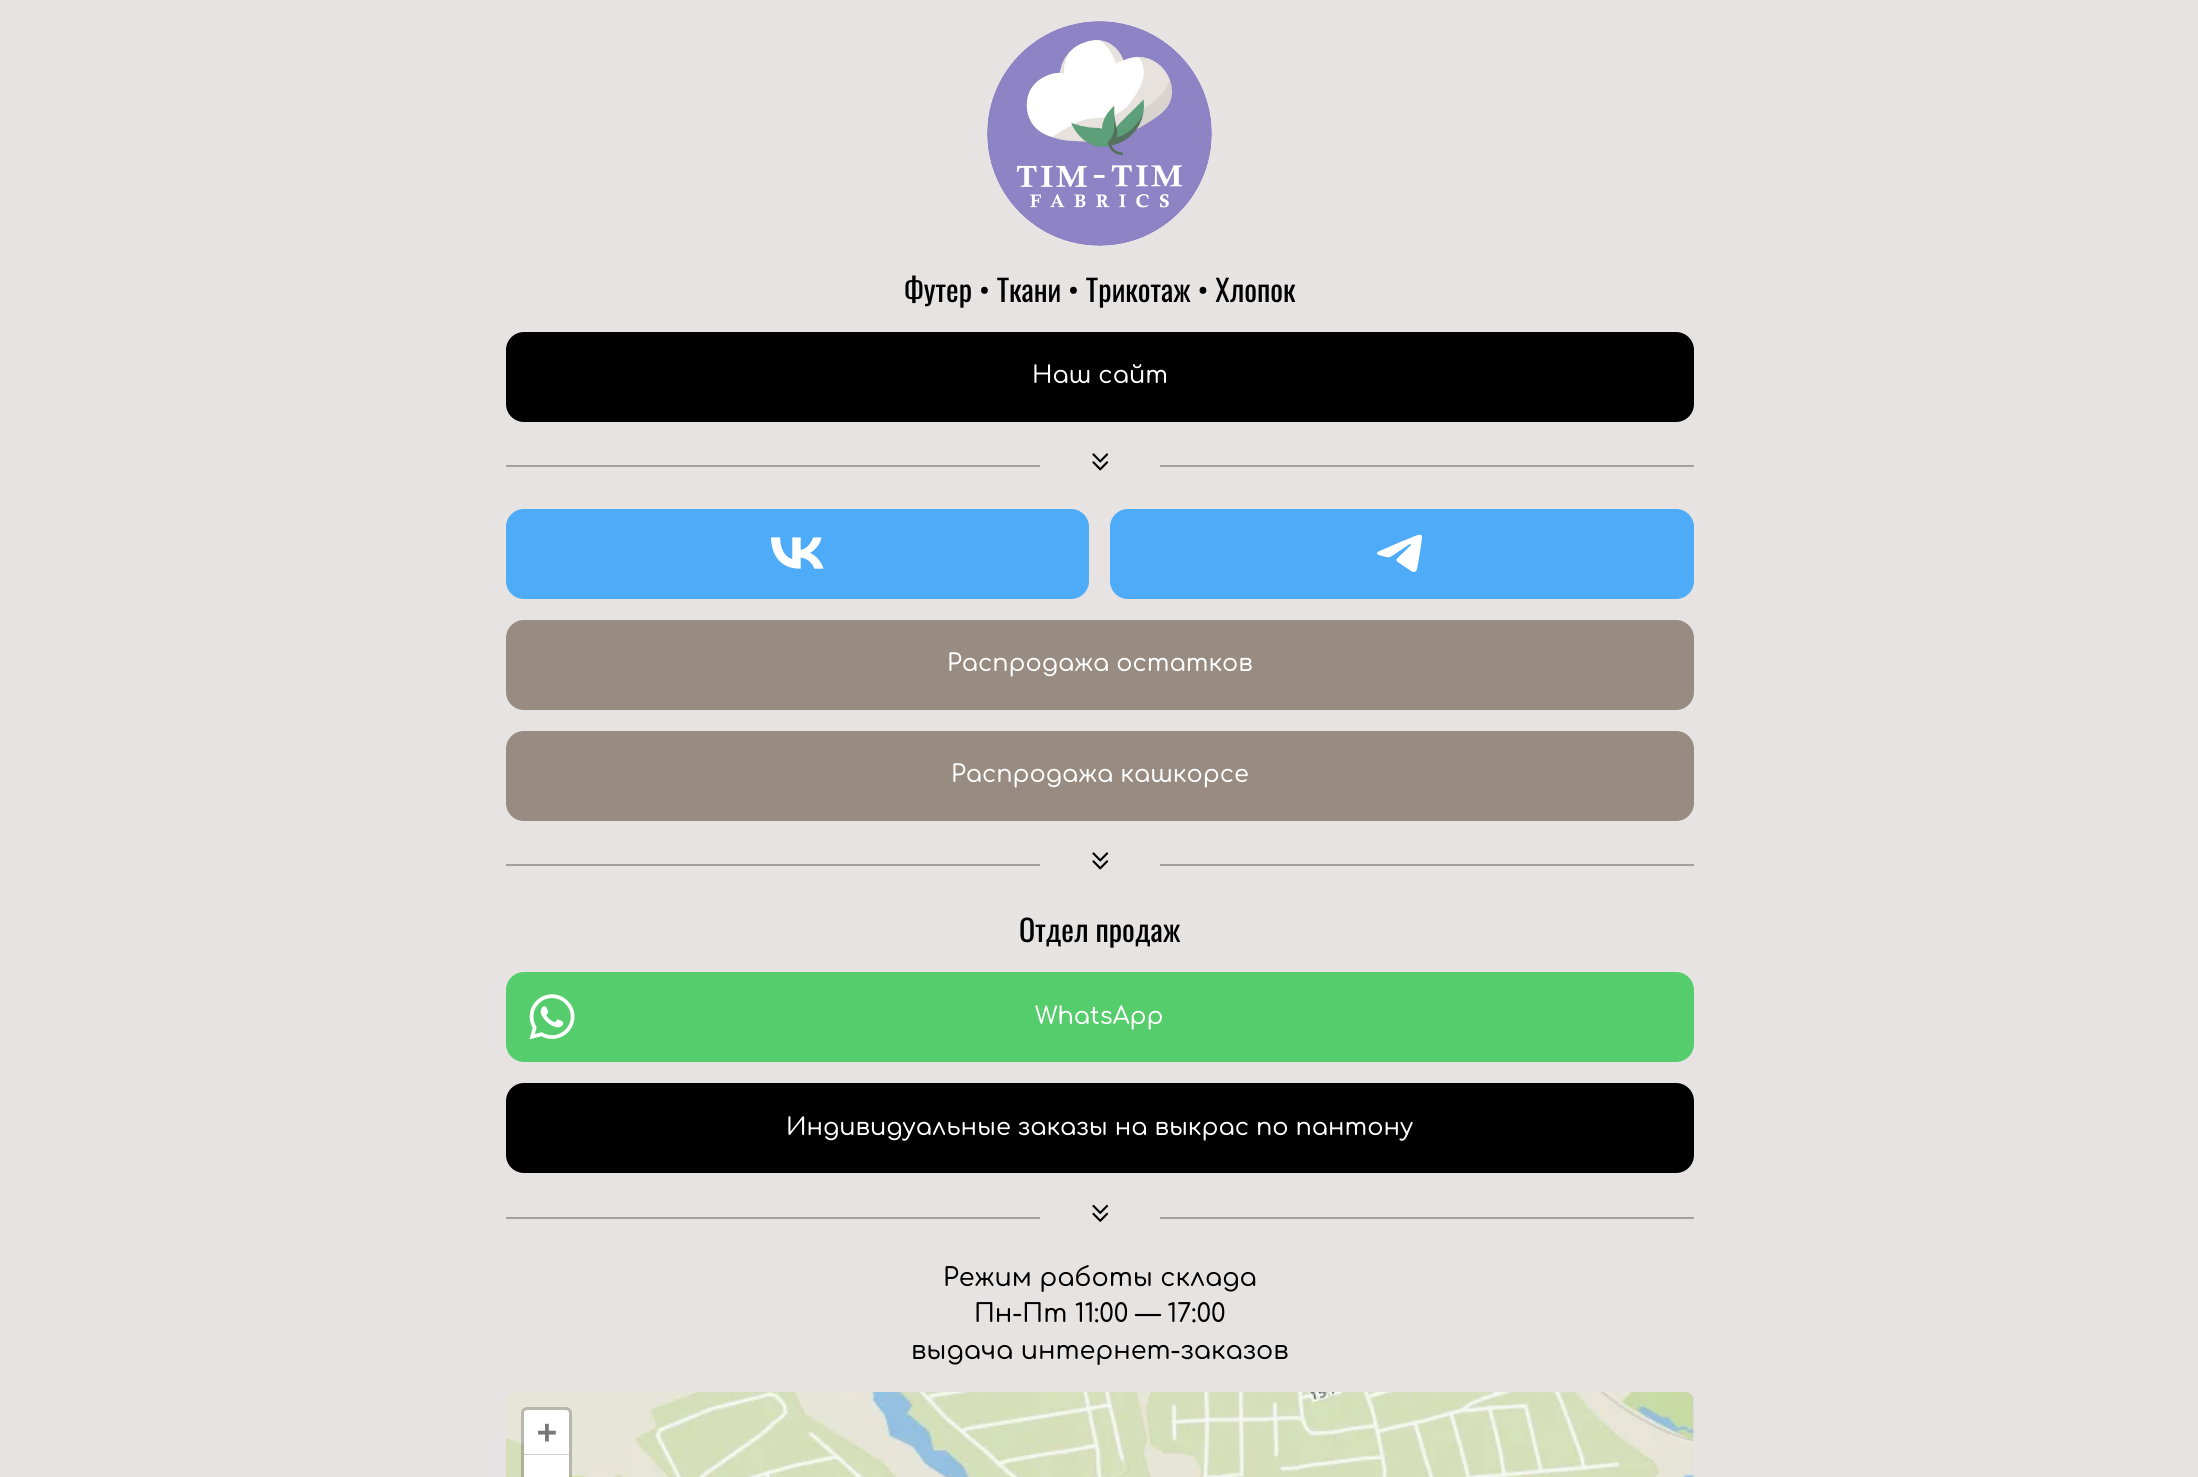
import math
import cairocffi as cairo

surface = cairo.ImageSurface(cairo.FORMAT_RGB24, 2198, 1477)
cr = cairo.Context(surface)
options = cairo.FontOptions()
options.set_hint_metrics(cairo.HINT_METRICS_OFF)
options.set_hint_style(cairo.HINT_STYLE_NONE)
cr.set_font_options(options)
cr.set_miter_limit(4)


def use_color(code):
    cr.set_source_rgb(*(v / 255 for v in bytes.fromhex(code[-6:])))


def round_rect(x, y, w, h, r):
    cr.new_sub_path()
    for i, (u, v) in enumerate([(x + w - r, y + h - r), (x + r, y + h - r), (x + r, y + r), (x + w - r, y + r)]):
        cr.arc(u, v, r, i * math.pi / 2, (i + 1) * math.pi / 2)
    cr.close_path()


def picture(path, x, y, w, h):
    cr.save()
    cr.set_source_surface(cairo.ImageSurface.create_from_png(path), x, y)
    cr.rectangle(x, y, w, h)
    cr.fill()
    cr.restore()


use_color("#e7e3e3")
cr.paint()
picture("img1.png", 987, 21, 225, 225)
cr.select_font_face("Oswald")
cr.set_font_size(30)
use_color("#000000")
cr.move_to(904, 302)
cr.show_text("Футер • Ткани • Трикотаж • Хлопок")
round_rect(507.5, 333.5, 1185, 87, 16.5)
cr.fill_preserve()
cr.set_line_width(3)
cr.stroke()
cr.select_font_face("Comfortaa Medium")
cr.set_font_size(24)
use_color("#ffffff")
cr.move_to(1032, 383)
cr.show_text("Наш сайт")
use_color("#a29f9f")
cr.rectangle(506, 465, 534, 2)
cr.fill()
picture("img2.png", 1092, 453, 17, 18)
cr.rectangle(1160, 465, 534, 2)
cr.fill()
use_color("#4dabf7")
round_rect(507.5, 510.5, 580, 87, 16.5)
cr.fill_preserve()
cr.stroke()
picture("img3.png", 771, 537, 53, 32)
round_rect(1111.5, 510.5, 581, 87, 16.5)
cr.fill_preserve()
cr.stroke()
picture("img4.png", 1377, 534, 45, 38)
use_color("#978b82")
round_rect(507.5, 621.5, 1185, 87, 16.5)
cr.fill_preserve()
cr.stroke()
use_color("#ffffff")
cr.move_to(947, 671)
cr.show_text("Распродажа остатков")
use_color("#978b82")
round_rect(507.5, 732.5, 1185, 87, 16.5)
cr.fill_preserve()
cr.stroke()
use_color("#ffffff")
cr.move_to(951, 782)
cr.show_text("Распродажа кашкорсе")
use_color("#a29f9f")
cr.rectangle(506, 864, 534, 2)
cr.fill()
picture("img2.png", 1092, 852, 17, 18)
cr.rectangle(1160, 864, 534, 2)
cr.fill()
cr.select_font_face("Oswald")
cr.set_font_size(30)
use_color("#000000")
cr.move_to(1019, 942)
cr.show_text("Отдел продаж")
use_color("#55cd6c")
round_rect(507.5, 973.5, 1185, 87, 16.5)
cr.fill_preserve()
cr.stroke()
picture("img5.png", 529, 994, 46, 46)
cr.select_font_face("Comfortaa Medium")
cr.set_font_size(24)
use_color("#ffffff")
cr.move_to(1035, 1024)
cr.show_text("WhatsApp")
use_color("#000000")
round_rect(507.5, 1084.5, 1185, 87, 16.5)
cr.fill_preserve()
cr.stroke()
use_color("#ffffff")
cr.move_to(786, 1135)
cr.show_text("Индивидуальные заказы на выкрас по пантону")
use_color("#a29f9f")
cr.rectangle(506, 1217, 534, 2)
cr.fill()
picture("img6.png", 1092, 1204, 17, 18)
cr.rectangle(1160, 1217, 534, 2)
cr.fill()
cr.set_font_size(25.5)
use_color("#000000")
cr.move_to(943, 1286)
cr.show_text("Режим работы склада")
cr.move_to(974, 1322)
cr.show_text("Пн-Пт 11:00 — 17:00")
cr.move_to(911, 1359)
cr.show_text("выдача интернет-заказов")
use_color("#dddddd")
cr.new_path()
cr.move_to(514, 1392)
cr.line_to(1686, 1392)
cr.curve_to(1690.5, 1392, 1694, 1395.5, 1694, 1400)
cr.line_to(1694, 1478)
cr.line_to(506, 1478)
cr.line_to(506, 1400)
cr.curve_to(506, 1395.5, 509.5, 1392, 514, 1392)
cr.close_path()
cr.fill()
picture("img7.png", 506, 1392, 378, 85)
picture("img8.png", 884, 1392, 384, 85)
picture("img9.png", 1268, 1392, 384, 85)
picture("img10.png", 1652, 1392, 42, 85)
cr.set_source_rgba(0, 0, 0, 0.2)
cr.new_path()
cr.move_to(527, 1407)
cr.line_to(566, 1407)
cr.curve_to(569, 1407, 572, 1410, 572, 1413)
cr.line_to(572, 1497)
cr.curve_to(572, 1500, 569, 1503, 566, 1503)
cr.line_to(527, 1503)
cr.curve_to(524, 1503, 521, 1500, 521, 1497)
cr.line_to(521, 1413)
cr.curve_to(521, 1410, 524, 1407, 527, 1407)
cr.close_path()
cr.fill()
use_color("#ffffff")
cr.new_path()
cr.move_to(527, 1410)
cr.line_to(566, 1410)
cr.curve_to(567.5, 1410, 569, 1411.5, 569, 1413)
cr.line_to(569, 1455)
cr.line_to(524, 1455)
cr.line_to(524, 1413)
cr.curve_to(524, 1411.5, 525.5, 1410, 527, 1410)
cr.close_path()
cr.fill()
use_color("#cccccc")
cr.rectangle(524, 1454, 45, 1)
cr.fill()
cr.select_font_face("DejaVu Sans Mono", cairo.FONT_SLANT_NORMAL, cairo.FONT_WEIGHT_BOLD)
cr.set_font_size(33)
use_color("#777777")
cr.move_to(537, 1443)
cr.show_text("+")
use_color("#ffffff")
cr.rectangle(524, 1455, 45, 22)
cr.fill()
surface.write_to_png("result.png")
